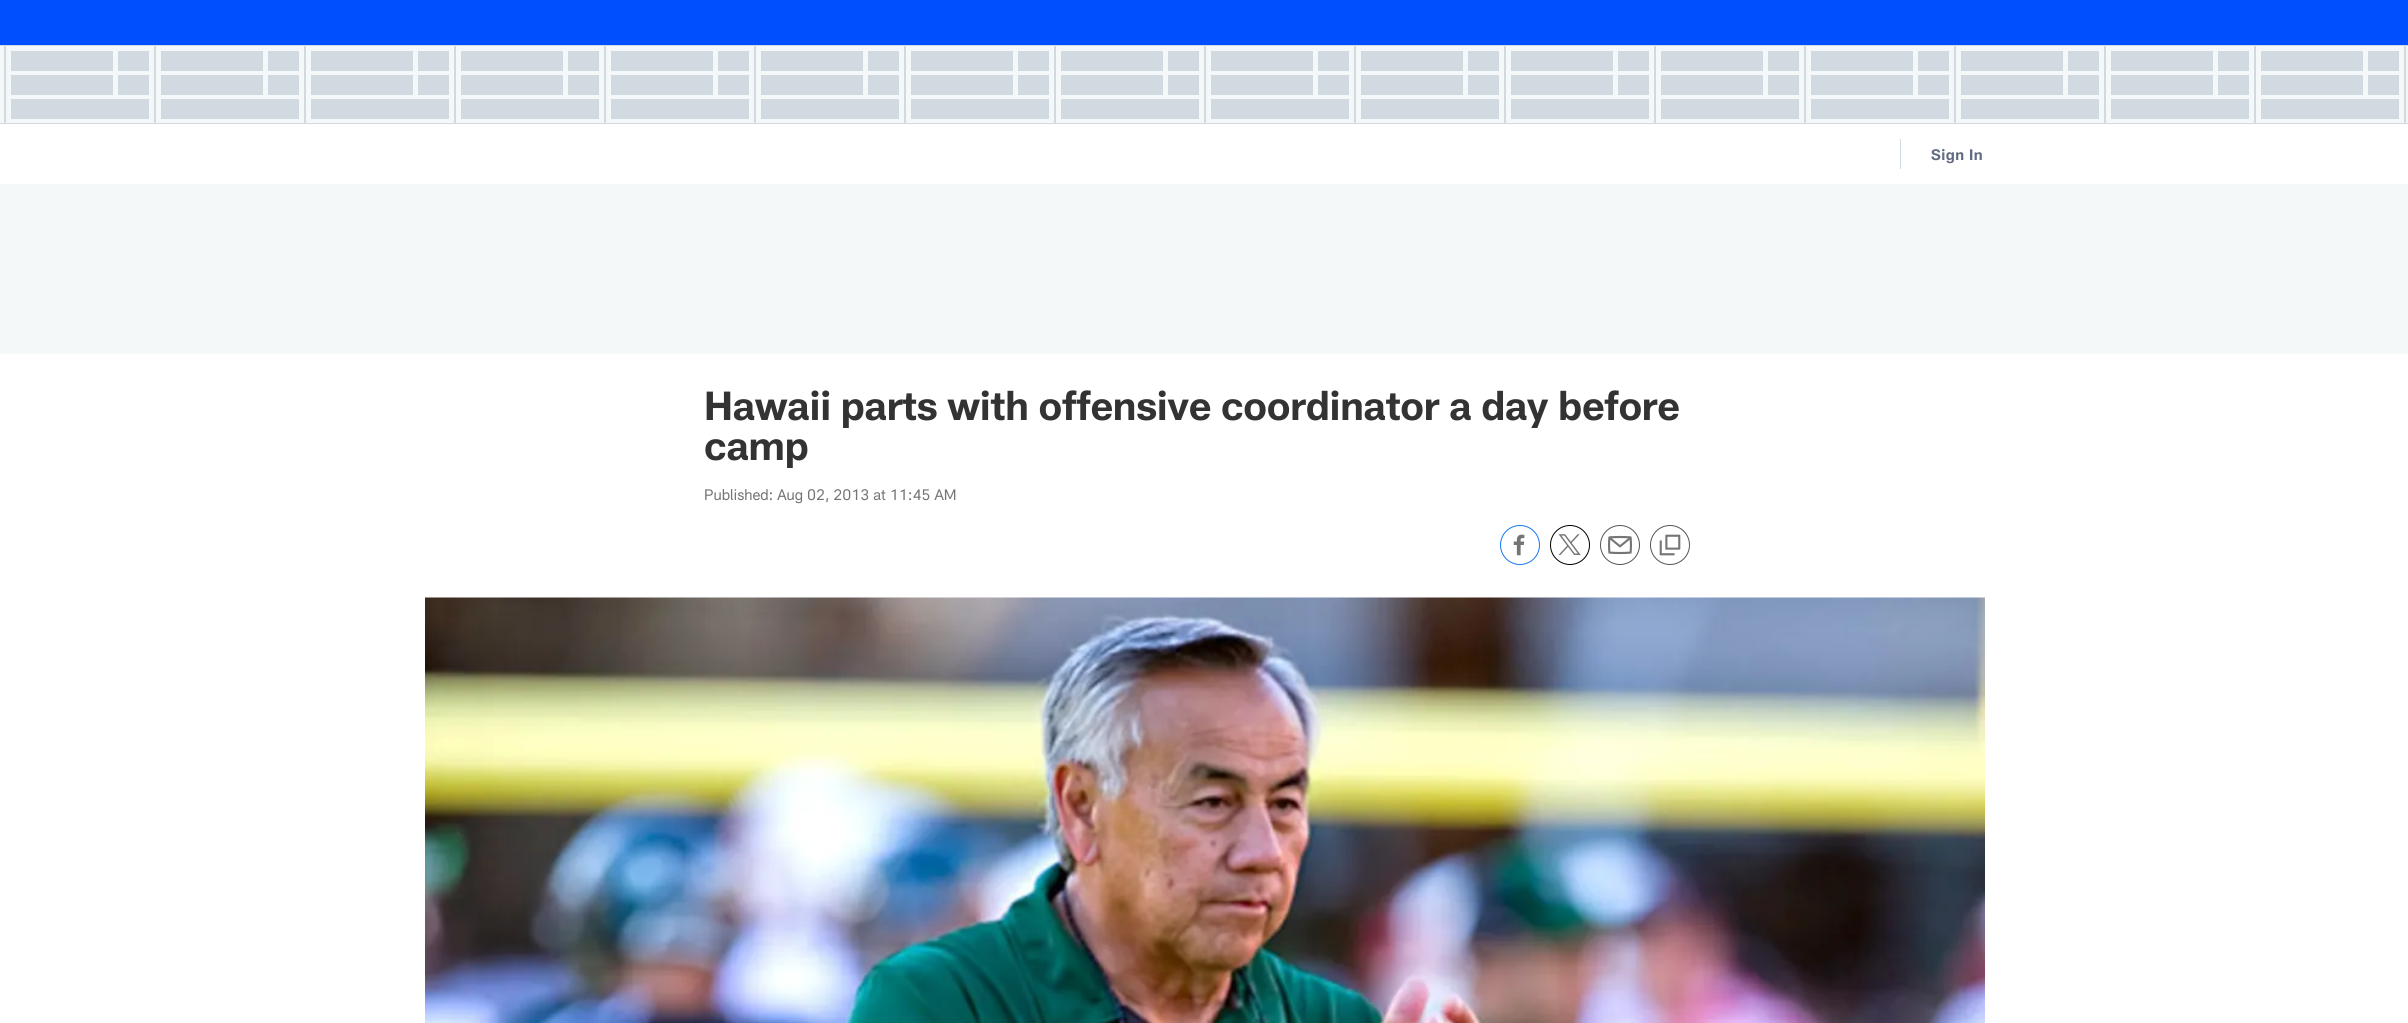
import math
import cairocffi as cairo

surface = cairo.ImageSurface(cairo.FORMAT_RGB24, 2408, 1023)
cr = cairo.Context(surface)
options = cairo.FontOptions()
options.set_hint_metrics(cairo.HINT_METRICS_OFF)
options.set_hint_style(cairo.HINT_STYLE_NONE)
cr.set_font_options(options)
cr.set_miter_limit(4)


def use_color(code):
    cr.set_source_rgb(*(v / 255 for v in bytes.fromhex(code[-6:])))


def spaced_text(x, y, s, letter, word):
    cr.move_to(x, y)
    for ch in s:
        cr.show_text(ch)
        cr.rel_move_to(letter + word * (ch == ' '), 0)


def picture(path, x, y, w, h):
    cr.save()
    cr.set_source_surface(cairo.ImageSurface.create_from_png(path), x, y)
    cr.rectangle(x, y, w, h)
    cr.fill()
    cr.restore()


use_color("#f4f8f8")
cr.paint()
use_color("#ffffff")
cr.rectangle(0, 124, 2408, 60)
cr.fill()
use_color("#004fff")
cr.rectangle(0, 0, 2408, 45)
cr.fill()
cr.rectangle(-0.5, 45.5, 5, 78)
use_color("#d2dae1")
cr.set_line_width(1)
cr.stroke()
cr.rectangle(5.5, 45.5, 149, 78)
cr.stroke()
cr.rectangle(11, 51, 102, 20)
cr.fill()
cr.rectangle(118, 51, 31, 20)
cr.fill()
cr.rectangle(11, 75, 102, 20)
cr.fill()
cr.rectangle(118, 75, 31, 20)
cr.fill()
cr.rectangle(11, 99, 138, 20)
cr.fill()
cr.rectangle(155.5, 45.5, 149, 78)
cr.stroke()
cr.rectangle(161, 51, 102, 20)
cr.fill()
cr.rectangle(268, 51, 31, 20)
cr.fill()
cr.rectangle(161, 75, 102, 20)
cr.fill()
cr.rectangle(268, 75, 31, 20)
cr.fill()
cr.rectangle(161, 99, 138, 20)
cr.fill()
cr.rectangle(305.5, 45.5, 149, 78)
cr.stroke()
cr.rectangle(311, 51, 102, 20)
cr.fill()
cr.rectangle(418, 51, 31, 20)
cr.fill()
cr.rectangle(311, 75, 102, 20)
cr.fill()
cr.rectangle(418, 75, 31, 20)
cr.fill()
cr.rectangle(311, 99, 138, 20)
cr.fill()
cr.rectangle(455.5, 45.5, 149, 78)
cr.stroke()
cr.rectangle(461, 51, 102, 20)
cr.fill()
cr.rectangle(568, 51, 31, 20)
cr.fill()
cr.rectangle(461, 75, 102, 20)
cr.fill()
cr.rectangle(568, 75, 31, 20)
cr.fill()
cr.rectangle(461, 99, 138, 20)
cr.fill()
cr.rectangle(605.5, 45.5, 149, 78)
cr.stroke()
cr.rectangle(611, 51, 102, 20)
cr.fill()
cr.rectangle(718, 51, 31, 20)
cr.fill()
cr.rectangle(611, 75, 102, 20)
cr.fill()
cr.rectangle(718, 75, 31, 20)
cr.fill()
cr.rectangle(611, 99, 138, 20)
cr.fill()
cr.rectangle(755.5, 45.5, 149, 78)
cr.stroke()
cr.rectangle(761, 51, 102, 20)
cr.fill()
cr.rectangle(868, 51, 31, 20)
cr.fill()
cr.rectangle(761, 75, 102, 20)
cr.fill()
cr.rectangle(868, 75, 31, 20)
cr.fill()
cr.rectangle(761, 99, 138, 20)
cr.fill()
cr.rectangle(905.5, 45.5, 149, 78)
cr.stroke()
cr.rectangle(911, 51, 102, 20)
cr.fill()
cr.rectangle(1018, 51, 31, 20)
cr.fill()
cr.rectangle(911, 75, 102, 20)
cr.fill()
cr.rectangle(1018, 75, 31, 20)
cr.fill()
cr.rectangle(911, 99, 138, 20)
cr.fill()
cr.rectangle(1055.5, 45.5, 149, 78)
cr.stroke()
cr.rectangle(1061, 51, 102, 20)
cr.fill()
cr.rectangle(1168, 51, 31, 20)
cr.fill()
cr.rectangle(1061, 75, 102, 20)
cr.fill()
cr.rectangle(1168, 75, 31, 20)
cr.fill()
cr.rectangle(1061, 99, 138, 20)
cr.fill()
cr.rectangle(1205.5, 45.5, 149, 78)
cr.stroke()
cr.rectangle(1211, 51, 102, 20)
cr.fill()
cr.rectangle(1318, 51, 31, 20)
cr.fill()
cr.rectangle(1211, 75, 102, 20)
cr.fill()
cr.rectangle(1318, 75, 31, 20)
cr.fill()
cr.rectangle(1211, 99, 138, 20)
cr.fill()
cr.rectangle(1355.5, 45.5, 149, 78)
cr.stroke()
cr.rectangle(1361, 51, 102, 20)
cr.fill()
cr.rectangle(1468, 51, 31, 20)
cr.fill()
cr.rectangle(1361, 75, 102, 20)
cr.fill()
cr.rectangle(1468, 75, 31, 20)
cr.fill()
cr.rectangle(1361, 99, 138, 20)
cr.fill()
cr.rectangle(1505.5, 45.5, 149, 78)
cr.stroke()
cr.rectangle(1511, 51, 102, 20)
cr.fill()
cr.rectangle(1618, 51, 31, 20)
cr.fill()
cr.rectangle(1511, 75, 102, 20)
cr.fill()
cr.rectangle(1618, 75, 31, 20)
cr.fill()
cr.rectangle(1511, 99, 138, 20)
cr.fill()
cr.rectangle(1655.5, 45.5, 149, 78)
cr.stroke()
cr.rectangle(1661, 51, 102, 20)
cr.fill()
cr.rectangle(1768, 51, 31, 20)
cr.fill()
cr.rectangle(1661, 75, 102, 20)
cr.fill()
cr.rectangle(1768, 75, 31, 20)
cr.fill()
cr.rectangle(1661, 99, 138, 20)
cr.fill()
cr.rectangle(1805.5, 45.5, 149, 78)
cr.stroke()
cr.rectangle(1811, 51, 102, 20)
cr.fill()
cr.rectangle(1918, 51, 31, 20)
cr.fill()
cr.rectangle(1811, 75, 102, 20)
cr.fill()
cr.rectangle(1918, 75, 31, 20)
cr.fill()
cr.rectangle(1811, 99, 138, 20)
cr.fill()
cr.rectangle(1955.5, 45.5, 149, 78)
cr.stroke()
cr.rectangle(1961, 51, 102, 20)
cr.fill()
cr.rectangle(2068, 51, 31, 20)
cr.fill()
cr.rectangle(1961, 75, 102, 20)
cr.fill()
cr.rectangle(2068, 75, 31, 20)
cr.fill()
cr.rectangle(1961, 99, 138, 20)
cr.fill()
cr.rectangle(2105.5, 45.5, 149, 78)
cr.stroke()
cr.rectangle(2111, 51, 102, 20)
cr.fill()
cr.rectangle(2218, 51, 31, 20)
cr.fill()
cr.rectangle(2111, 75, 102, 20)
cr.fill()
cr.rectangle(2218, 75, 31, 20)
cr.fill()
cr.rectangle(2111, 99, 138, 20)
cr.fill()
cr.rectangle(2255.5, 45.5, 149, 78)
cr.stroke()
cr.rectangle(2261, 51, 102, 20)
cr.fill()
cr.rectangle(2368, 51, 31, 20)
cr.fill()
cr.rectangle(2261, 75, 102, 20)
cr.fill()
cr.rectangle(2368, 75, 31, 20)
cr.fill()
cr.rectangle(2261, 99, 138, 20)
cr.fill()
cr.rectangle(2405.5, 45.5, 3, 78)
cr.stroke()
cr.rectangle(1900, 139, 1, 30)
cr.fill()
cr.select_font_face("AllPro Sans", cairo.FONT_SLANT_NORMAL, cairo.FONT_WEIGHT_BOLD)
cr.set_font_size(15)
use_color("#626c80")
spaced_text(1931, 160, "Sign In", 0.5, 0)
use_color("#ffffff")
cr.rectangle(0, 354, 2408, 669)
cr.fill()
cr.set_font_size(40)
use_color("#333333")
spaced_text(704, 420, "Hawaii parts with offensive coordinator a day before", -0.25, 0)
spaced_text(704, 460, "camp", -0.25, 0)
cr.select_font_face("AllPro Sans")
cr.set_font_size(15)
use_color("#757575")
cr.move_to(704, 500)
cr.show_text("Published: Aug 02, 2013 at 11:45 AM")
cr.new_path()
cr.arc(1520, 545, 19.5, 0, 2 * math.pi)
use_color("#1877f2")
cr.stroke()
picture("img1.png", 1513, 534, 12, 22)
cr.arc(1570, 545, 19.5, 0, 2 * math.pi)
use_color("#000000")
cr.stroke()
picture("img2.png", 1558, 534, 23, 21)
cr.arc(1620, 545, 19.5, 0, 2 * math.pi)
use_color("#555555")
cr.stroke()
picture("img3.png", 1608, 535, 24, 20)
cr.arc(1670, 545, 19.5, 0, 2 * math.pi)
cr.stroke()
picture("img4.png", 1659, 534, 22, 22)
picture("img5.png", 425, 597, 1560, 426)
surface.write_to_png("result.png")
